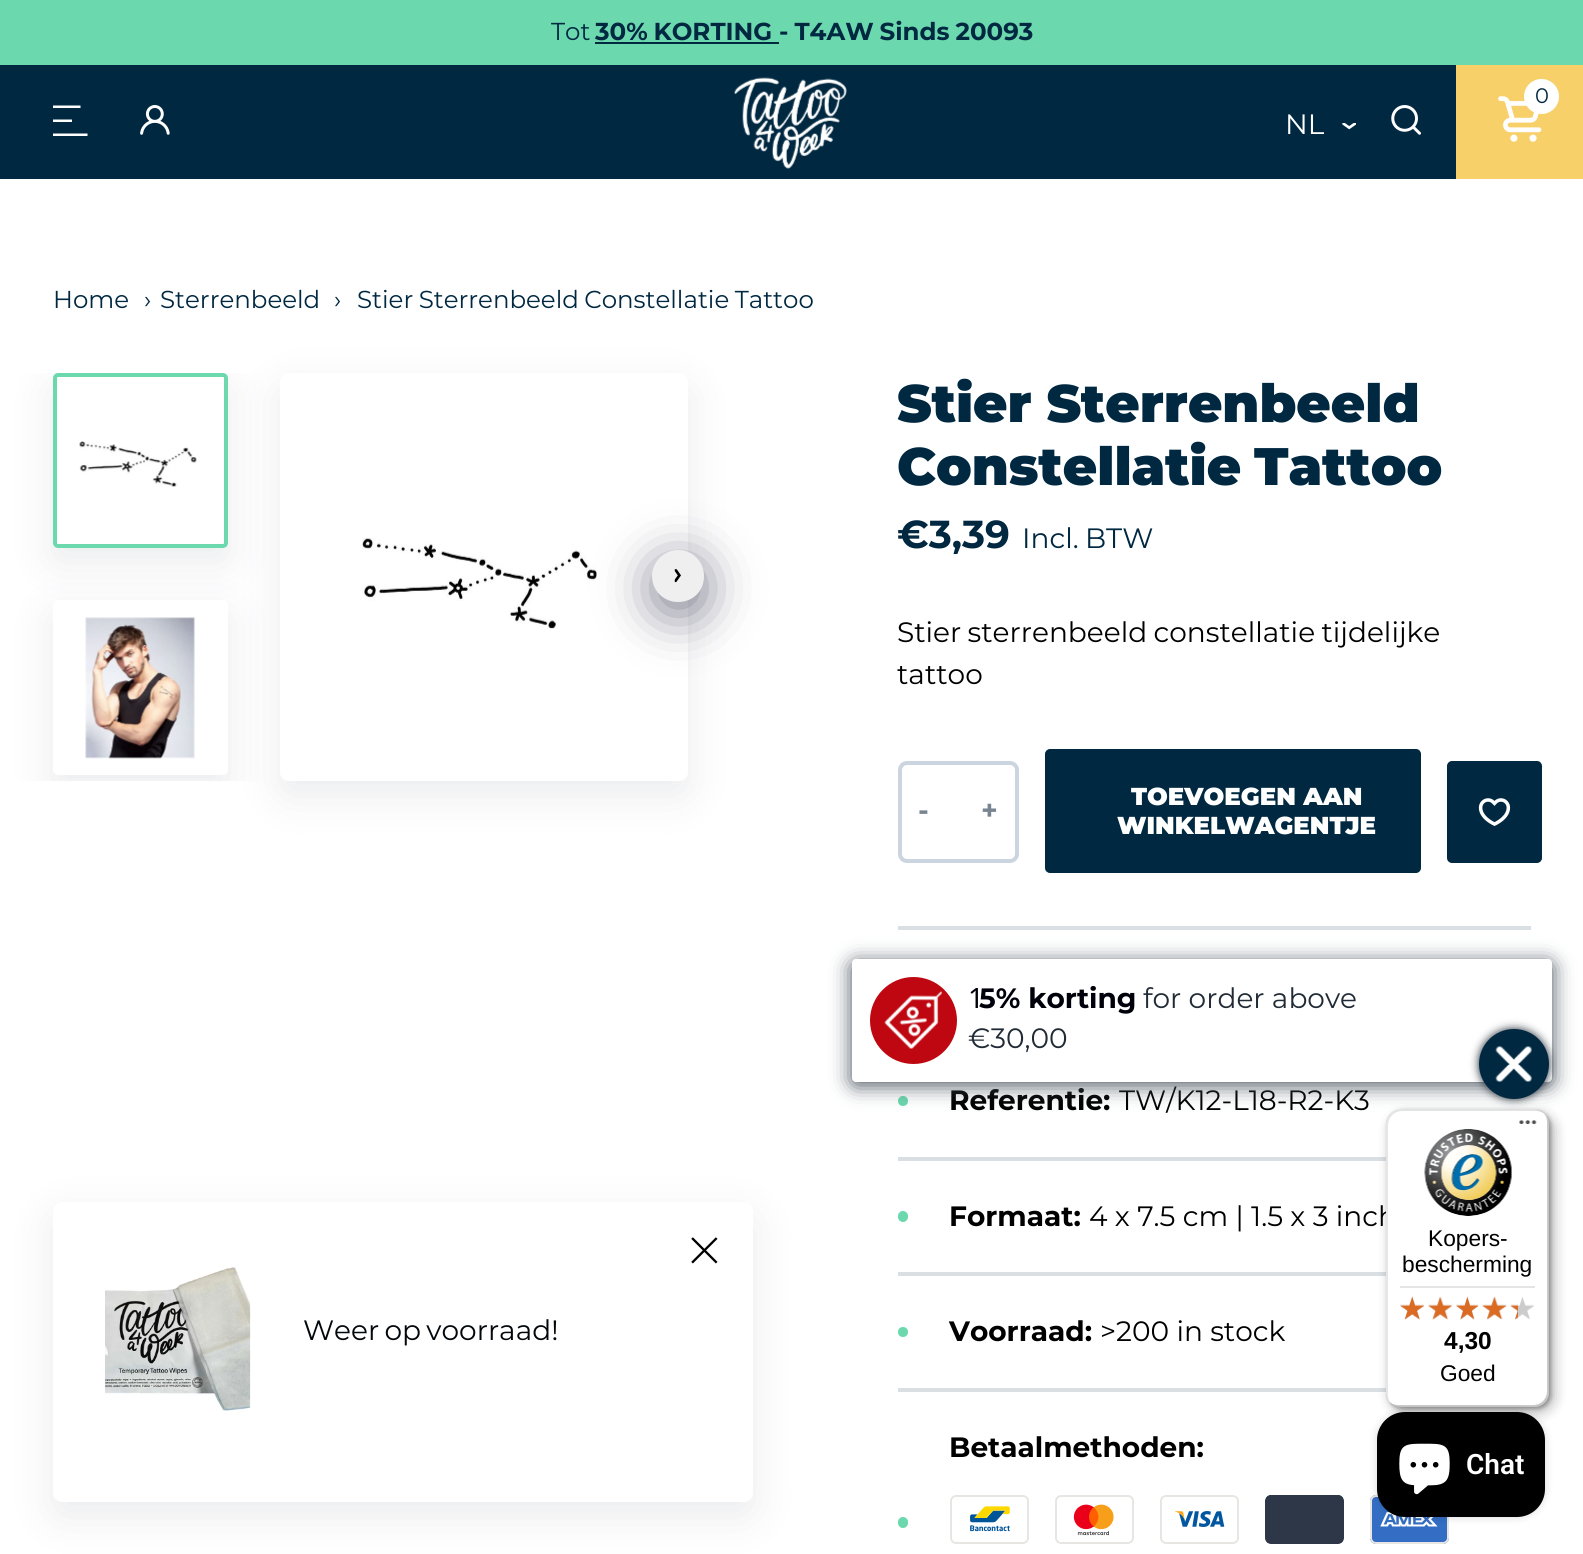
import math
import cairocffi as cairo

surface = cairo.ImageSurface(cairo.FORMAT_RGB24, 1583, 1554)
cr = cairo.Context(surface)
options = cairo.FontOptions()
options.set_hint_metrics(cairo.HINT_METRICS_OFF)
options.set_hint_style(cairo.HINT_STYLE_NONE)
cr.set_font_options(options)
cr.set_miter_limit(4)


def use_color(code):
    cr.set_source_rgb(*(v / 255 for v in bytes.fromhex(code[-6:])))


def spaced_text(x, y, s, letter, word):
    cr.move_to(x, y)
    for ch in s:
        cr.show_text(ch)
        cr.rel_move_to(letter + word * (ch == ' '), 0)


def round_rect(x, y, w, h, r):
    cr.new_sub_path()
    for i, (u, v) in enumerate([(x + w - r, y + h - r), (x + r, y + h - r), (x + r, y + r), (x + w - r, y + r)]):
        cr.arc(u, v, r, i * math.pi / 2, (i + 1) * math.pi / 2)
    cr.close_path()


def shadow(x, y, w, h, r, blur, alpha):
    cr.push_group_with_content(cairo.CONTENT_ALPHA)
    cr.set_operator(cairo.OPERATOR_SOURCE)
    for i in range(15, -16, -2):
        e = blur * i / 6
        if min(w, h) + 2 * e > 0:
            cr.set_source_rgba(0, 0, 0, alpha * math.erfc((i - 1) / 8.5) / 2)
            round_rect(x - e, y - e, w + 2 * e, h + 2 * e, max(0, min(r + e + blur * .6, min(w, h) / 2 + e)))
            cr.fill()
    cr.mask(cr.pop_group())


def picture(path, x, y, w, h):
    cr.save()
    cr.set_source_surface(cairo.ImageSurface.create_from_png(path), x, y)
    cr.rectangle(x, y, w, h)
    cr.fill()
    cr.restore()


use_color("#ffffff")
cr.paint()
use_color("#6cd8ae")
cr.rectangle(0, 0, 1583, 65)
cr.fill()
cr.select_font_face("Montserrat")
cr.set_font_size(24.5)
use_color("#002841")
cr.move_to(551, 40)
cr.show_text("Tot")
cr.select_font_face("Montserrat", cairo.FONT_SLANT_NORMAL, cairo.FONT_WEIGHT_BOLD)
spaced_text(595, 40, "30% KORTING", 0, -1)
cr.rectangle(595, 42, 184, 2)
cr.fill()
spaced_text(779, 40, "- T4AW Sinds 20093", 0, -1)
cr.rectangle(0, 65, 1456, 114)
cr.fill()
picture("img1.png", 734, 77, 113, 92)
use_color("#f7d069")
cr.rectangle(1456, 65, 127, 114)
cr.fill()
picture("img2.png", 1498, 96, 44, 46)
use_color("#ffffff")
cr.arc(1541.5, 96.5, 17.5, 0, 2 * math.pi)
cr.fill()
cr.select_font_face("Montserrat")
cr.set_font_size(21)
use_color("#002841")
cr.move_to(1535, 103)
cr.show_text("0")
cr.save()
cr.rectangle(53, 103, 35, 35)
cr.clip()
use_color("#ffffff")
cr.new_path()
cr.move_to(72, 122)
cr.line_to(52.5, 122)
cr.line_to(52.5, 119.5)
cr.line_to(72, 119.5)
cr.close_path()
cr.move_to(87.5, 136)
cr.line_to(87.5, 133.5)
cr.line_to(52.5, 133.5)
cr.line_to(52.5, 136)
cr.close_path()
cr.move_to(80.5, 105.5)
cr.line_to(52.5, 105.5)
cr.line_to(52.5, 108)
cr.line_to(80.5, 108)
cr.close_path()
cr.fill()
cr.restore()
picture("img3.png", 140, 105, 30, 30)
cr.set_font_size(28)
use_color("#ffffff")
cr.move_to(1285, 134)
cr.show_text("NL")
picture("img4.png", 1342, 123, 14, 7)
picture("img5.png", 1391, 105, 30, 30)
cr.set_font_size(24.5)
use_color("#002841")
cr.move_to(53, 308)
cr.show_text("Home")
cr.move_to(144, 308)
cr.show_text("›")
cr.move_to(160, 308)
cr.show_text("Sterrenbeeld")
cr.move_to(334, 308)
cr.show_text("›")
spaced_text(357, 308, "Stier Sterrenbeeld Constellatie Tattoo", 0, -1)
cr.save()
cr.rectangle(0, 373, 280, 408)
cr.clip()
use_color("#959da5")
shadow(53, 387, 175, 175, 5, 21, 0.2)
cr.restore()
cr.save()
cr.set_fill_rule(cairo.FILL_RULE_EVEN_ODD)
cr.new_path()
cr.move_to(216, 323)
cr.line_to(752, 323)
cr.line_to(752, 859)
cr.line_to(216, 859)
cr.close_path()
cr.move_to(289, 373)
cr.line_to(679, 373)
cr.curve_to(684, 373, 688, 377, 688, 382)
cr.line_to(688, 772)
cr.curve_to(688, 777, 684, 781, 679, 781)
cr.line_to(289, 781)
cr.curve_to(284, 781, 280, 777, 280, 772)
cr.line_to(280, 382)
cr.curve_to(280, 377, 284, 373, 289, 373)
cr.close_path()
cr.clip()
use_color("#959da5")
shadow(280, 387, 408, 408, 9, 21, 0.2)
cr.restore()
use_color("#ffffff")
round_rect(55, 375, 171, 171, 3)
cr.fill_preserve()
use_color("#6cd8ae")
cr.set_line_width(4)
cr.stroke()
picture("img6.png", 79, 441, 118, 46)
cr.save()
cr.rectangle(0, 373, 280, 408)
cr.clip()
use_color("#959da5")
shadow(53, 614, 175, 175, 5, 21, 0.2)
cr.restore()
use_color("#ffffff")
round_rect(53, 600, 175, 175, 5)
cr.fill()
picture("img7.png", 85, 617, 110, 142)
picture("img8.png", 362, 538, 235, 91)
use_color("#32324d")
shadow(653, 562, 52, 52, 26, 25.5, 0.6)
use_color("#efefef")
cr.new_path()
cr.move_to(652, 576)
cr.curve_to(652, 562, 664, 550, 678, 550)
cr.curve_to(693, 550, 704, 562, 704, 576)
cr.curve_to(704, 591, 693, 602, 678, 602)
cr.curve_to(664, 602, 652, 591, 652, 576)
cr.close_path()
cr.fill()
picture("img9.png", 674, 569, 7, 14)
cr.select_font_face("Montserrat Black")
cr.set_font_size(52.75)
use_color("#002841")
spaced_text(897, 422, "Stier Sterrenbeeld", 0, -1)
spaced_text(897, 485, "Constellatie Tattoo", 0, -3)
cr.select_font_face("Montserrat", cairo.FONT_SLANT_NORMAL, cairo.FONT_WEIGHT_BOLD)
cr.set_font_size(39)
cr.move_to(897, 548)
cr.show_text("€3,39")
cr.select_font_face("Montserrat")
cr.set_font_size(28)
spaced_text(1022, 548, "Incl. BTW", 0, -1)
use_color("#000000")
spaced_text(897, 642, "Stier sterrenbeeld constellatie tijdelijke", 0, -1)
cr.move_to(897, 684)
cr.show_text("tattoo")
round_rect(900, 763, 117, 98, 7)
use_color("#cbd5e0")
cr.stroke()
cr.select_font_face("Montserrat", cairo.FONT_SLANT_NORMAL, cairo.FONT_WEIGHT_BOLD)
use_color("#788491")
cr.move_to(918, 820)
cr.show_text("-")
cr.move_to(981, 820)
cr.show_text("+")
use_color("#002841")
round_rect(1046, 750, 374, 122, 4)
cr.fill_preserve()
cr.set_line_width(2)
cr.stroke()
cr.select_font_face("Montserrat Black")
cr.set_font_size(24.5)
use_color("#ffffff")
cr.move_to(1131, 805)
cr.show_text("TOEVOEGEN AAN")
cr.move_to(1117, 834)
cr.show_text("WINKELWAGENTJE")
use_color("#002841")
round_rect(1448, 762, 93, 100, 4)
cr.fill_preserve()
cr.stroke()
picture("img10.png", 1478, 798, 33, 28)
use_color("#d9dfe3")
cr.rectangle(898, 926, 633, 4)
cr.fill()
use_color("#6cd8ae")
cr.arc(903, 1101, 5, 0, 2 * math.pi)
cr.fill()
cr.select_font_face("Montserrat", cairo.FONT_SLANT_NORMAL, cairo.FONT_WEIGHT_BOLD)
cr.set_font_size(28)
use_color("#000000")
cr.move_to(949, 1110)
cr.show_text("Referentie:")
cr.select_font_face("Montserrat")
cr.move_to(1119, 1110)
cr.show_text("TW/K12-L18-R2-K3")
use_color("#d9dfe3")
cr.rectangle(898, 1157, 488, 4)
cr.fill()
use_color("#6cd8ae")
round_rect(898, 1211, 10, 11, 5)
cr.fill()
cr.select_font_face("Montserrat", cairo.FONT_SLANT_NORMAL, cairo.FONT_WEIGHT_BOLD)
use_color("#000000")
cr.move_to(949, 1226)
cr.show_text("Formaat:")
cr.select_font_face("Montserrat")
cr.move_to(1089, 1226)
cr.show_text("4 x 7.5 cm | 1.5 x 3 inch")
use_color("#d9dfe3")
cr.rectangle(898, 1272, 488, 4)
cr.fill()
use_color("#6cd8ae")
cr.arc(903, 1332, 5, 0, 2 * math.pi)
cr.fill()
cr.select_font_face("Montserrat", cairo.FONT_SLANT_NORMAL, cairo.FONT_WEIGHT_BOLD)
use_color("#000000")
cr.move_to(949, 1341)
cr.show_text("Voorraad:")
cr.select_font_face("Montserrat")
cr.move_to(1100, 1341)
cr.show_text(">200 in stock")
use_color("#d9dfe3")
cr.rectangle(898, 1388, 488, 4)
cr.fill()
cr.select_font_face("Montserrat", cairo.FONT_SLANT_NORMAL, cairo.FONT_WEIGHT_BOLD)
use_color("#000000")
cr.move_to(949, 1457)
cr.show_text("Betaalmethoden:")
use_color("#6cd8ae")
round_rect(898, 1517, 10, 11, 5)
cr.fill()
picture("img11.png", 950, 1495, 79, 49)
picture("img12.png", 1055, 1495, 79, 49)
picture("img13.png", 1160, 1495, 79, 49)
picture("img14.png", 1265, 1495, 79, 49)
picture("img15.png", 1370, 1495, 79, 49)
use_color("#959da5")
shadow(53, 1216, 700, 300, 9, 21, 0.2)
use_color("#ffffff")
round_rect(53, 1202, 700, 300, 9)
cr.fill()
picture("img16.png", 691, 1237, 27, 27)
picture("img17.png", 105, 1267, 146, 144)
cr.select_font_face("Montserrat")
use_color("#01070b")
spaced_text(303, 1340, "Weer op voorraad!", 0, -2)
use_color("#000000")
shadow(1391, 1115, 163, 297, 14, 7, 0.15)
shadow(1388, 1111, 163, 298, 14, 2, 0.15)
cr.set_source_rgba(0, 0, 0, 0.1)
cr.new_path()
cr.move_to(1402, 1111)
cr.line_to(1536, 1111)
cr.curve_to(1540, 1111, 1544, 1113, 1546, 1116)
cr.curve_to(1544, 1112, 1540, 1110, 1535, 1110)
cr.line_to(1400, 1110)
cr.curve_to(1392, 1110, 1386, 1116, 1386, 1124)
cr.line_to(1386, 1393)
cr.curve_to(1386, 1398, 1388, 1402, 1392, 1404)
cr.curve_to(1389, 1402, 1388, 1398, 1388, 1395)
cr.line_to(1388, 1125)
cr.curve_to(1388, 1118, 1394, 1111, 1402, 1111)
cr.close_path()
cr.fill()
cr.set_source_rgba(0, 0, 0, 0.2)
cr.new_path()
cr.move_to(1389, 1401)
cr.curve_to(1391, 1405, 1395, 1407, 1400, 1407)
cr.line_to(1535, 1407)
cr.curve_to(1543, 1407, 1549, 1401, 1549, 1393)
cr.line_to(1549, 1124)
cr.curve_to(1549, 1120, 1547, 1116, 1544, 1114)
cr.curve_to(1546, 1116, 1547, 1119, 1547, 1122)
cr.line_to(1547, 1391)
cr.curve_to(1547, 1399, 1541, 1405, 1533, 1405)
cr.line_to(1398, 1405)
cr.curve_to(1395, 1405, 1391, 1404, 1389, 1401)
cr.close_path()
cr.fill()
cr.set_source_rgba(0.196, 0.196, 0.196, 0.2)
cr.new_path()
cr.move_to(1391, 1403)
cr.curve_to(1393, 1406, 1396, 1407, 1400, 1407)
cr.line_to(1535, 1407)
cr.curve_to(1543, 1407, 1549, 1401, 1549, 1393)
cr.line_to(1549, 1124)
cr.curve_to(1549, 1121, 1548, 1118, 1546, 1115)
cr.curve_to(1547, 1117, 1548, 1120, 1548, 1122)
cr.line_to(1548, 1392)
cr.curve_to(1548, 1400, 1541, 1406, 1534, 1406)
cr.line_to(1399, 1406)
cr.curve_to(1396, 1406, 1393, 1405, 1391, 1403)
cr.close_path()
cr.fill()
cr.set_source_rgba(1, 1, 1, 0.3)
cr.new_path()
cr.move_to(1391, 1403)
cr.curve_to(1393, 1406, 1396, 1407, 1400, 1407)
cr.line_to(1535, 1407)
cr.curve_to(1543, 1407, 1549, 1401, 1549, 1393)
cr.line_to(1549, 1124)
cr.curve_to(1549, 1120, 1548, 1117, 1545, 1115)
cr.curve_to(1547, 1117, 1548, 1120, 1548, 1123)
cr.line_to(1548, 1392)
cr.curve_to(1548, 1400, 1542, 1406, 1534, 1406)
cr.line_to(1399, 1406)
cr.curve_to(1396, 1406, 1393, 1405, 1391, 1403)
cr.close_path()
cr.fill()
use_color("#000000")
shadow(1391, 1115, 163, 297, 14, 7, 0.15)
shadow(1388, 1111, 163, 298, 14, 2, 0.15)
use_color("#ffffff")
round_rect(1386, 1110, 163, 297, 14)
cr.fill()
cr.set_source_rgba(0, 0, 0, 0.1)
cr.new_path()
cr.move_to(1402, 1111)
cr.line_to(1536, 1111)
cr.curve_to(1540, 1111, 1544, 1113, 1546, 1116)
cr.curve_to(1544, 1112, 1540, 1110, 1535, 1110)
cr.line_to(1400, 1110)
cr.curve_to(1392, 1110, 1386, 1116, 1386, 1124)
cr.line_to(1386, 1393)
cr.curve_to(1386, 1398, 1388, 1402, 1392, 1404)
cr.curve_to(1389, 1402, 1388, 1398, 1388, 1395)
cr.line_to(1388, 1125)
cr.curve_to(1388, 1118, 1394, 1111, 1402, 1111)
cr.close_path()
cr.fill()
cr.set_source_rgba(0, 0, 0, 0.2)
cr.new_path()
cr.move_to(1389, 1401)
cr.curve_to(1391, 1405, 1395, 1407, 1400, 1407)
cr.line_to(1535, 1407)
cr.curve_to(1543, 1407, 1549, 1401, 1549, 1393)
cr.line_to(1549, 1124)
cr.curve_to(1549, 1120, 1547, 1116, 1544, 1114)
cr.curve_to(1546, 1116, 1547, 1119, 1547, 1122)
cr.line_to(1547, 1391)
cr.curve_to(1547, 1399, 1541, 1405, 1533, 1405)
cr.line_to(1398, 1405)
cr.curve_to(1395, 1405, 1391, 1404, 1389, 1401)
cr.close_path()
cr.fill()
cr.set_source_rgba(0.196, 0.196, 0.196, 0.2)
cr.new_path()
cr.move_to(1391, 1403)
cr.curve_to(1393, 1406, 1396, 1407, 1400, 1407)
cr.line_to(1535, 1407)
cr.curve_to(1543, 1407, 1549, 1401, 1549, 1393)
cr.line_to(1549, 1124)
cr.curve_to(1549, 1121, 1548, 1118, 1546, 1115)
cr.curve_to(1547, 1117, 1548, 1120, 1548, 1122)
cr.line_to(1548, 1392)
cr.curve_to(1548, 1400, 1541, 1406, 1534, 1406)
cr.line_to(1399, 1406)
cr.curve_to(1396, 1406, 1393, 1405, 1391, 1403)
cr.close_path()
cr.fill()
cr.set_source_rgba(1, 1, 1, 0.3)
cr.new_path()
cr.move_to(1391, 1403)
cr.curve_to(1393, 1406, 1396, 1407, 1400, 1407)
cr.line_to(1535, 1407)
cr.curve_to(1543, 1407, 1549, 1401, 1549, 1393)
cr.line_to(1549, 1124)
cr.curve_to(1549, 1120, 1548, 1117, 1545, 1115)
cr.curve_to(1547, 1117, 1548, 1120, 1548, 1123)
cr.line_to(1548, 1392)
cr.curve_to(1548, 1400, 1542, 1406, 1534, 1406)
cr.line_to(1399, 1406)
cr.curve_to(1396, 1406, 1393, 1405, 1391, 1403)
cr.close_path()
cr.fill()
use_color("#454f5b")
shadow(852, 963, 700, 122, 4, 10.5, 1)
use_color("#ffffff")
round_rect(852, 959, 700, 123, 4)
cr.fill()
use_color("#bf0711")
cr.arc(913.5, 1020.5, 43.5, 0, 2 * math.pi)
cr.fill()
picture("img18.png", 884, 991, 58, 58)
cr.select_font_face("Noto Sans")
use_color("#00000a")
cr.move_to(968, 1008)
cr.show_text("1")
cr.select_font_face("Montserrat", cairo.FONT_SLANT_NORMAL, cairo.FONT_WEIGHT_BOLD)
cr.move_to(979, 1008)
cr.show_text("5% korting")
cr.select_font_face("Montserrat")
use_color("#212b36")
cr.move_to(1143, 1008)
cr.show_text("for order above")
cr.move_to(968, 1048)
cr.show_text("€30,00")
use_color("#212b36")
shadow(1479, 1029, 70, 70, 35, 4.5, 1)
use_color("#002841")
cr.arc(1514, 1064, 35, 0, 2 * math.pi)
cr.fill()
picture("img19.png", 1495, 1046, 37, 36)
picture("img20.png", 1519, 1120, 18, 4)
picture("img21.png", 1424, 1129, 88, 87)
cr.select_font_face("Liberation Sans")
cr.set_font_size(22.75)
use_color("#000000")
cr.move_to(1428, 1246)
cr.show_text("Kopers-")
cr.move_to(1402, 1272)
cr.show_text("bescherming")
use_color("#e5e5e5")
cr.rectangle(1400, 1286, 135, 2)
cr.fill()
picture("img22.png", 1400, 1296, 24, 24)
picture("img23.png", 1428, 1297, 24, 23)
picture("img24.png", 1456, 1296, 22, 24)
picture("img25.png", 1482, 1297, 25, 22)
picture("img26.png", 1511, 1296, 23, 24)
picture("img27.png", 1400, 1296, 24, 24)
picture("img28.png", 1428, 1296, 25, 24)
picture("img29.png", 1456, 1296, 23, 24)
picture("img30.png", 1482, 1296, 25, 24)
picture("img31.png", 1510, 1304, 8, 16)
cr.select_font_face("Liberation Sans", cairo.FONT_SLANT_NORMAL, cairo.FONT_WEIGHT_BOLD)
cr.set_font_size(24.5)
use_color("#000000")
cr.move_to(1444, 1349)
cr.show_text("4,30")
cr.select_font_face("Liberation Sans")
cr.set_font_size(22.75)
cr.move_to(1440, 1381)
cr.show_text("Goed")
use_color("#000000")
shadow(1377, 1412, 168, 105, 28, 4.5, 0.15)
use_color("#000000")
round_rect(1377, 1412, 168, 105, 28)
cr.fill()
picture("img32.png", 1399, 1443, 51, 52)
cr.select_font_face("Roboto SemiBold")
cr.set_font_size(28)
use_color("#ffffff")
cr.move_to(1466, 1474)
cr.show_text("Chat")
surface.write_to_png("result.png")
